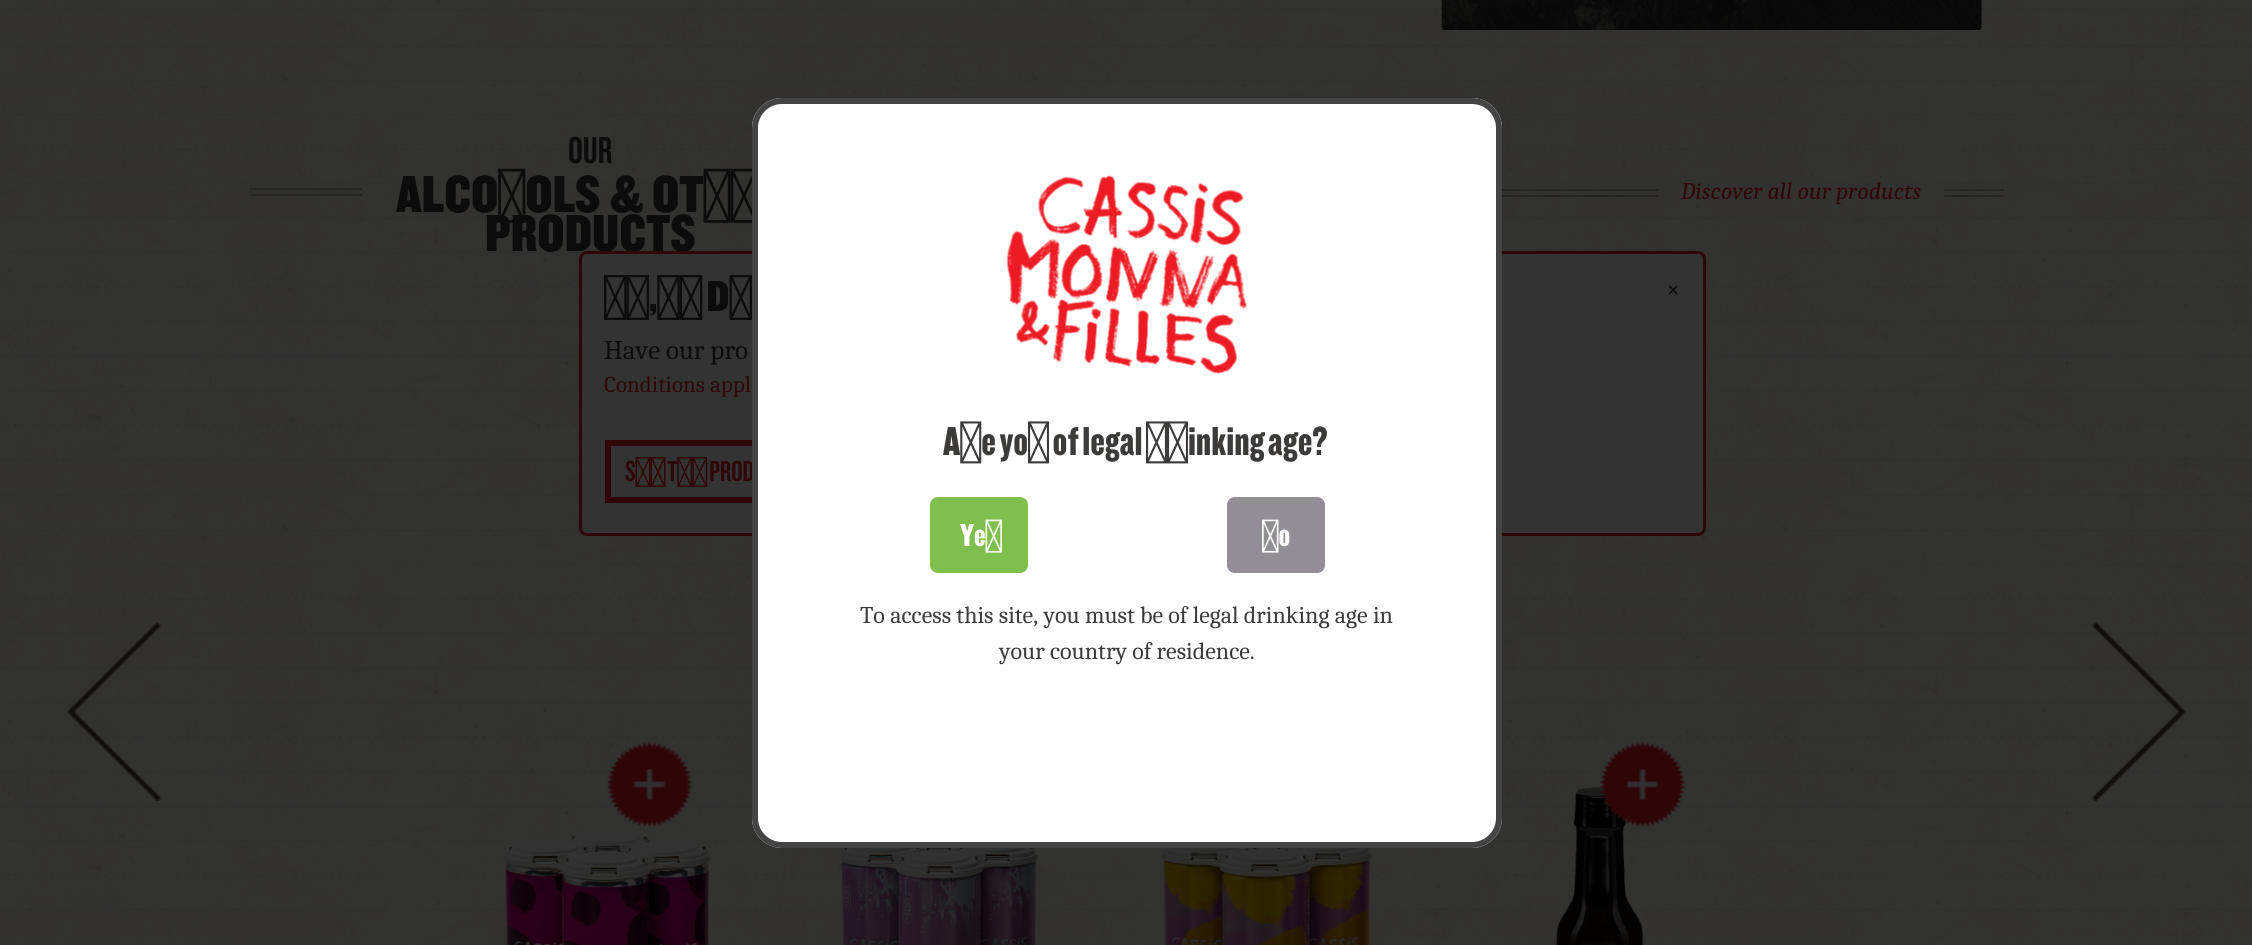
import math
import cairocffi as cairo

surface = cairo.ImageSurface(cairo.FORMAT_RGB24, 2252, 945)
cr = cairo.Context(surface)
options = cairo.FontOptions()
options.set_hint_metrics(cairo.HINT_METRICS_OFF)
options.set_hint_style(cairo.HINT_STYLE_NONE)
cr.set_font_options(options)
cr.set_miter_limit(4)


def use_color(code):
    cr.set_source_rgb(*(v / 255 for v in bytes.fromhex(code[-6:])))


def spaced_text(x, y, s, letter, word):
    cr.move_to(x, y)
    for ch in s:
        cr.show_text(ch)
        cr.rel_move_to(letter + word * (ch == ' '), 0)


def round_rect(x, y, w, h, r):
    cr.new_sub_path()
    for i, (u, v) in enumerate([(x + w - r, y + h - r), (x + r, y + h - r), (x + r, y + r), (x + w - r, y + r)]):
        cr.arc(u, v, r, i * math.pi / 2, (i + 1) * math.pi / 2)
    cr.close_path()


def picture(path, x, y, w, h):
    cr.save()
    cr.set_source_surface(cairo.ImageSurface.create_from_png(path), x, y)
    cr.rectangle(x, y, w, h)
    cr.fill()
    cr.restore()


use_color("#ffffff")
cr.paint()
picture("img1.png", 0, 0, 2252, 945)
cr.set_source_rgba(0, 0, 0, 0.2)
round_rect(1442, -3, 540, 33, 3)
cr.fill()
picture("img2.png", 1441, 0, 541, 30)
cr.select_font_face("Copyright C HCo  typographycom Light")
cr.set_font_size(39)
use_color("#0c0c0c")
cr.move_to(568, 163)
cr.show_text("OUR")
cr.set_source_rgba(0.047, 0.047, 0.047, 0.3)
cr.rectangle(249, 188, 113, 2)
cr.fill()
cr.rectangle(249, 194, 113, 2)
cr.fill()
cr.select_font_face("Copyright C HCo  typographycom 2 Light")
cr.set_font_size(54)
use_color("#0c0c0c")
cr.move_to(396, 212)
cr.show_text("ALCOHOLS & OTHE")
cr.move_to(485, 251)
cr.show_text("PRODUCTS")
cr.set_source_rgba(0.047, 0.047, 0.047, 0.3)
cr.rectangle(1502, 189, 157, 2)
cr.fill()
cr.rectangle(1502, 195, 157, 2)
cr.fill()
cr.select_font_face("Caladea", cairo.FONT_SLANT_ITALIC)
cr.set_font_size(24)
use_color("#310606")
cr.move_to(1681, 199)
cr.show_text("Discover all our products")
cr.set_source_rgba(0.047, 0.047, 0.047, 0.3)
cr.rectangle(1944, 189, 60, 2)
cr.fill()
cr.rectangle(1944, 195, 60, 2)
cr.fill()
picture("img3.png", 607, 742, 85, 85)
picture("img4.png", 503, 831, 208, 114)
picture("img5.png", 839, 848, 200, 97)
picture("img6.png", 1161, 848, 211, 97)
picture("img8.png", 1556, 787, 87, 158)
picture("img7.png", 1600, 742, 85, 85)
picture("img9.png", 67, 622, 94, 179)
picture("img10.png", 2092, 622, 94, 179)
cr.set_source_rgba(0.2, 0.2, 0.2, 0.9)
round_rect(580.5, 252.5, 1124, 282, 6.5)
cr.fill_preserve()
use_color("#300608")
cr.set_line_width(3)
cr.stroke()
cr.select_font_face("Copyright C HCo  typographycom 2 Light")
cr.set_font_size(45)
use_color("#0c0c0c")
spaced_text(604, 311, "19,95 DE", 0, -3)
cr.select_font_face("Liberation Sans")
cr.set_font_size(21)
cr.move_to(1667, 297)
cr.show_text("×")
cr.select_font_face("Caladea")
cr.set_font_size(27)
cr.move_to(604, 359)
cr.show_text("Have our pro")
cr.set_font_size(23)
use_color("#310606")
cr.move_to(604, 392)
cr.show_text("Conditions appl")
cr.rectangle(608, 443, 193, 57)
use_color("#300608")
cr.set_line_width(6)
cr.stroke()
cr.select_font_face("Copyright C HCo  typographycom Light")
cr.set_font_size(30)
use_color("#310606")
spaced_text(625, 481, "SEE THE PROD", 0, -2)
use_color("#ffffff")
round_rect(752, 98, 750, 750, 30)
cr.fill()
picture("img11.png", 1007, 175, 240, 199)
round_rect(755, 101, 744, 744, 27)
use_color("#444444")
cr.stroke()
cr.select_font_face("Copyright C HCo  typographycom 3 Light")
cr.set_font_size(42)
use_color("#3d3a3a")
spaced_text(943, 455, "Are you of legal drinking age?", 0, -2.5)
use_color("#7fbf4d")
round_rect(930, 497, 98, 76, 8)
cr.fill()
cr.set_font_size(33)
use_color("#ffffff")
cr.move_to(960, 546)
cr.show_text("Yes")
use_color("#938d95")
round_rect(1227, 497, 98, 76, 8)
cr.fill()
use_color("#ffffff")
cr.move_to(1262, 546)
cr.show_text("No")
cr.select_font_face("Caladea")
cr.set_font_size(24)
use_color("#3d3a3a")
cr.move_to(860, 623)
cr.show_text("To access this site, you must be of legal drinking age in")
cr.move_to(999, 659)
cr.show_text("your country of residence.")
surface.write_to_png("result.png")
